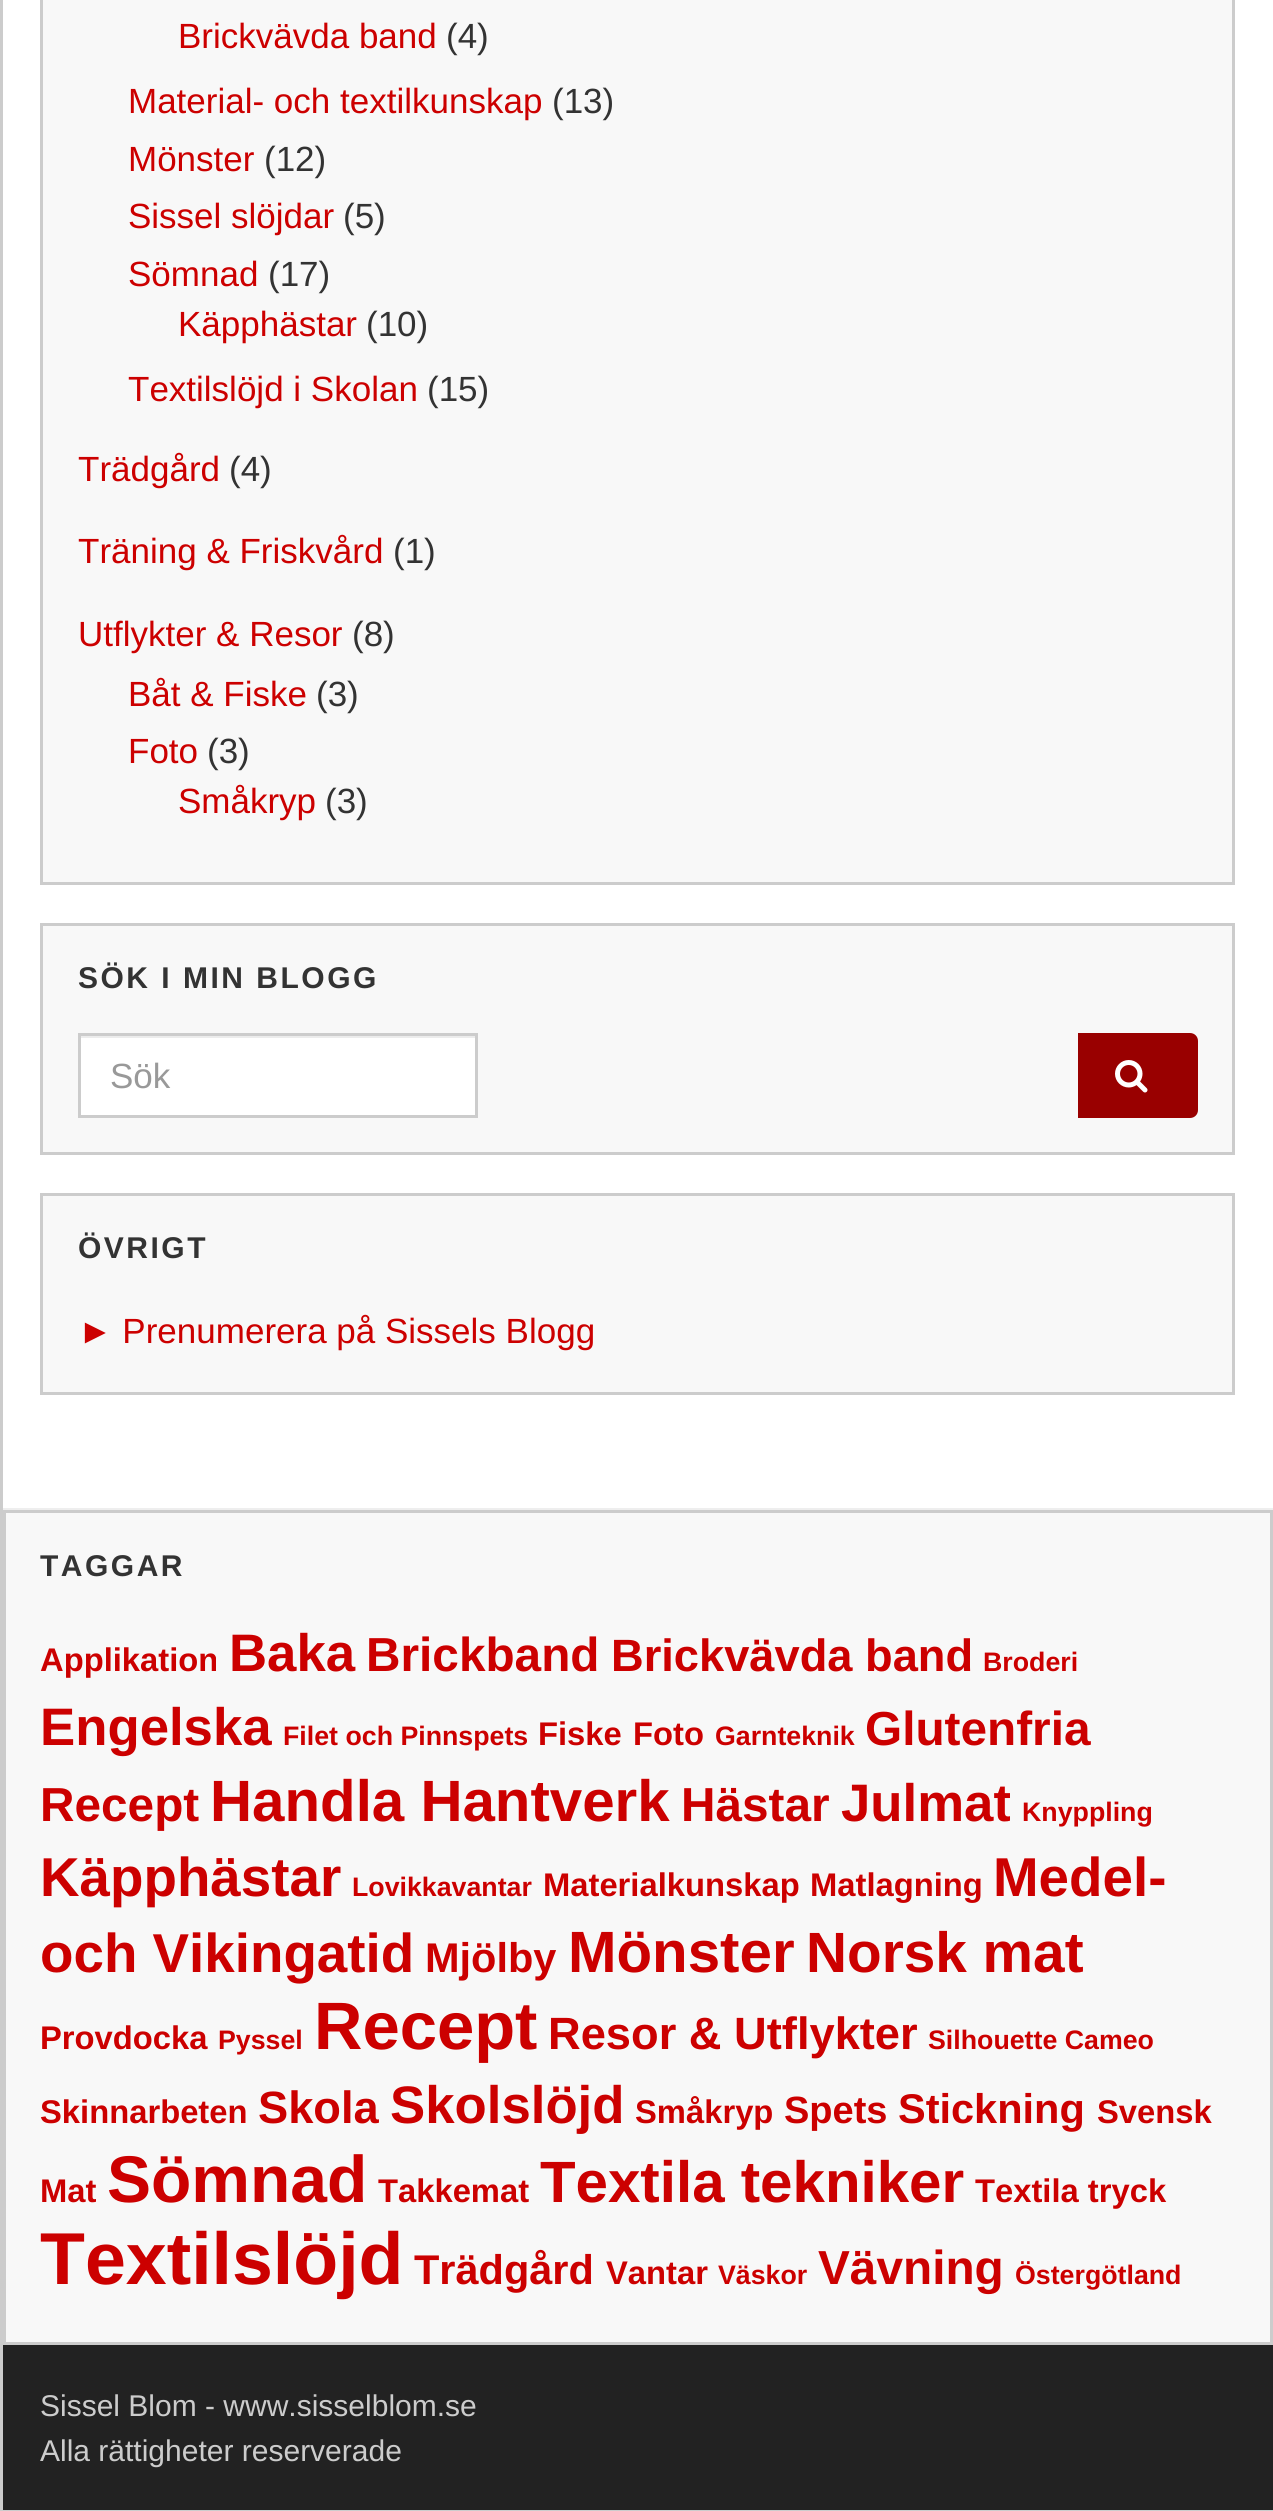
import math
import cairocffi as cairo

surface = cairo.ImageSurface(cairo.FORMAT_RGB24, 1273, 2511)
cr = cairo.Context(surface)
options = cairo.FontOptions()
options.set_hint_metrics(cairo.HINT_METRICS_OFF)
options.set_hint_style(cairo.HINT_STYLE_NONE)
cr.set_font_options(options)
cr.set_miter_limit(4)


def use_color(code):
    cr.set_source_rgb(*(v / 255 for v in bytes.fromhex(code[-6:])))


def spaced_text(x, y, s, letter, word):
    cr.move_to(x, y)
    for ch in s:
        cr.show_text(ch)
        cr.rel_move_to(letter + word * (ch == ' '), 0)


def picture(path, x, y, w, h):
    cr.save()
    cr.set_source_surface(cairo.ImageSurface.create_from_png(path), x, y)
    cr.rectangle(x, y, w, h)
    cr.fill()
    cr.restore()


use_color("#ffffff")
cr.paint()
cr.rectangle(1.5, -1.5, 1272, 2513)
use_color("#cccccc")
cr.set_line_width(3)
cr.stroke()
use_color("#ffffff")
cr.rectangle(1272, 0, 1, 1508)
cr.fill()
use_color("#f8f8f8")
cr.rectangle(41.5, -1.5, 1192, 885)
cr.fill_preserve()
use_color("#cccccc")
cr.stroke()
cr.select_font_face("Liberation Sans")
cr.set_font_size(35)
use_color("#cc0000")
cr.move_to(178, 48)
cr.show_text("Brickvävda band")
use_color("#333333")
cr.move_to(446, 48)
cr.show_text("(4)")
use_color("#cc0000")
cr.move_to(128, 113)
cr.show_text("Material- och textilkunskap")
use_color("#333333")
cr.move_to(552, 113)
cr.show_text("(13)")
use_color("#cc0000")
cr.move_to(128, 171)
cr.show_text("Mönster")
use_color("#333333")
cr.move_to(264, 171)
cr.show_text("(12)")
use_color("#cc0000")
cr.move_to(128, 228)
cr.show_text("Sissel slöjdar")
use_color("#333333")
cr.move_to(343, 228)
cr.show_text("(5)")
use_color("#cc0000")
cr.move_to(128, 286)
cr.show_text("Sömnad")
use_color("#333333")
cr.move_to(268, 286)
cr.show_text("(17)")
use_color("#cc0000")
cr.move_to(178, 336)
cr.show_text("Käpphästar")
use_color("#333333")
cr.move_to(366, 336)
cr.show_text("(10)")
use_color("#cc0000")
cr.move_to(128, 401)
cr.show_text("Textilslöjd i Skolan")
use_color("#333333")
cr.move_to(427, 401)
cr.show_text("(15)")
use_color("#cc0000")
cr.move_to(78, 481)
cr.show_text("Trädgård")
use_color("#333333")
cr.move_to(229, 481)
cr.show_text("(4)")
use_color("#cc0000")
cr.move_to(78, 563)
cr.show_text("Träning & Friskvård")
use_color("#333333")
cr.move_to(393, 563)
cr.show_text("(1)")
use_color("#cc0000")
cr.move_to(78, 646)
cr.show_text("Utflykter & Resor")
use_color("#333333")
cr.move_to(352, 646)
cr.show_text("(8)")
use_color("#cc0000")
cr.move_to(128, 706)
cr.show_text("Båt & Fiske")
use_color("#333333")
cr.move_to(316, 706)
cr.show_text("(3)")
use_color("#cc0000")
cr.move_to(128, 763)
cr.show_text("Foto")
use_color("#333333")
cr.move_to(207, 763)
cr.show_text("(3)")
use_color("#cc0000")
cr.move_to(178, 813)
cr.show_text("Småkryp")
use_color("#333333")
cr.move_to(325, 813)
cr.show_text("(3)")
use_color("#f8f8f8")
cr.rectangle(41.5, 924.5, 1192, 229)
cr.fill_preserve()
use_color("#cccccc")
cr.stroke()
cr.select_font_face("Liberation Sans", cairo.FONT_SLANT_NORMAL, cairo.FONT_WEIGHT_BOLD)
cr.set_font_size(30)
use_color("#333333")
spaced_text(78, 988, "SÖK I MIN BLOGG", 2.5, 0)
use_color("#ffffff")
cr.rectangle(81, 1038, 394, 77)
cr.fill()
use_color("#ececec")
cr.rectangle(80, 1036, 395, 2)
cr.fill()
cr.rectangle(79.5, 1034.5, 397, 82)
use_color("#cccccc")
cr.stroke()
cr.select_font_face("Liberation Sans")
cr.set_font_size(35)
use_color("#999999")
cr.move_to(110, 1088)
cr.show_text("Sök")
use_color("#990000")
cr.new_path()
cr.move_to(1078, 1033)
cr.line_to(1190, 1033)
cr.curve_to(1194.5, 1033, 1198, 1036.5, 1198, 1041)
cr.line_to(1198, 1110)
cr.curve_to(1198, 1114.5, 1194.5, 1118, 1190, 1118)
cr.line_to(1078, 1118)
cr.close_path()
cr.fill()
picture("img1.png", 1115, 1060, 33, 33)
use_color("#f8f8f8")
cr.rectangle(41.5, 1194.5, 1192, 199)
cr.fill_preserve()
use_color("#cccccc")
cr.stroke()
cr.select_font_face("Liberation Sans", cairo.FONT_SLANT_NORMAL, cairo.FONT_WEIGHT_BOLD)
cr.set_font_size(30)
use_color("#333333")
spaced_text(78, 1258, "ÖVRIGT", 2.5, 0)
cr.select_font_face("Liberation Sans")
cr.set_font_size(35)
use_color("#cc0000")
cr.move_to(78, 1343)
cr.show_text("► Prenumerera på Sissels Blogg")
use_color("#eeeeee")
cr.rectangle(3, 1508, 1270, 2)
cr.fill()
use_color("#f8f8f8")
cr.rectangle(4.5, 1511.5, 1267, 832)
cr.fill_preserve()
use_color("#cccccc")
cr.stroke()
cr.select_font_face("Liberation Sans", cairo.FONT_SLANT_NORMAL, cairo.FONT_WEIGHT_BOLD)
cr.set_font_size(30)
use_color("#333333")
spaced_text(40, 1576, "TAGGAR", 2.5, 0)
cr.set_font_size(32.75)
use_color("#cc0000")
cr.move_to(40, 1671)
cr.show_text("Applikation")
cr.set_font_size(52.75)
cr.move_to(229, 1671)
cr.show_text("Baka")
cr.set_font_size(47.75)
cr.move_to(366, 1671)
cr.show_text("Brickband")
cr.set_font_size(45.25)
cr.move_to(611, 1671)
cr.show_text("Brickvävda band")
cr.set_font_size(26.75)
cr.move_to(983, 1671)
cr.show_text("Broderi")
cr.set_font_size(52.75)
cr.move_to(40, 1745)
cr.show_text("Engelska")
cr.set_font_size(26.75)
cr.move_to(283, 1745)
cr.show_text("Filet och Pinnspets")
cr.set_font_size(32.75)
cr.move_to(538, 1745)
cr.show_text("Fiske")
cr.move_to(633, 1745)
cr.show_text("Foto")
cr.set_font_size(26.75)
cr.move_to(715, 1745)
cr.show_text("Garnteknik")
cr.set_font_size(47.75)
cr.move_to(865, 1745)
cr.show_text("Glutenfria")
cr.move_to(40, 1821)
cr.show_text("Recept")
cr.set_font_size(58.25)
cr.move_to(210, 1821)
cr.show_text("Handla Hantverk")
cr.set_font_size(47.75)
cr.move_to(681, 1821)
cr.show_text("Hästar")
cr.set_font_size(52.75)
cr.move_to(841, 1821)
cr.show_text("Julmat")
cr.set_font_size(26.75)
cr.move_to(1022, 1821)
cr.show_text("Knyppling")
cr.set_font_size(54.75)
cr.move_to(40, 1896)
cr.show_text("Käpphästar")
cr.set_font_size(26.75)
cr.move_to(352, 1896)
cr.show_text("Lovikkavantar")
cr.set_font_size(32.75)
cr.move_to(543, 1896)
cr.show_text("Materialkunskap")
cr.move_to(810, 1896)
cr.show_text("Matlagning")
cr.set_font_size(54.75)
cr.move_to(993, 1896)
cr.show_text("Medel-")
cr.move_to(40, 1972)
cr.show_text("och Vikingatid")
cr.set_font_size(41.5)
cr.move_to(425, 1972)
cr.show_text("Mjölby")
cr.set_font_size(58.25)
cr.move_to(568, 1972)
cr.show_text("Mönster")
cr.set_font_size(56.75)
cr.move_to(806, 1972)
cr.show_text("Norsk mat")
cr.set_font_size(32.75)
cr.move_to(40, 2049)
cr.show_text("Provdocka")
cr.set_font_size(26.75)
cr.move_to(218, 2049)
cr.show_text("Pyssel")
cr.set_font_size(67)
cr.move_to(314, 2049)
cr.show_text("Recept")
cr.set_font_size(45.25)
cr.move_to(548, 2049)
cr.show_text("Resor & Utflykter")
cr.set_font_size(26.75)
cr.move_to(928, 2049)
cr.show_text("Silhouette Cameo")
cr.set_font_size(32.75)
cr.move_to(40, 2123)
cr.show_text("Skinnarbeten")
cr.set_font_size(45.25)
cr.move_to(258, 2123)
cr.show_text("Skola")
cr.set_font_size(52.75)
cr.move_to(390, 2123)
cr.show_text("Skolslöjd")
cr.set_font_size(32.75)
cr.move_to(635, 2123)
cr.show_text("Småkryp")
cr.set_font_size(38)
cr.move_to(784, 2123)
cr.show_text("Spets")
cr.set_font_size(41.5)
cr.move_to(898, 2123)
cr.show_text("Stickning")
cr.set_font_size(32.75)
cr.move_to(1097, 2123)
cr.show_text("Svensk")
cr.move_to(40, 2202)
cr.show_text("Mat")
cr.set_font_size(66)
cr.move_to(107, 2202)
cr.show_text("Sömnad")
cr.set_font_size(32.75)
cr.move_to(378, 2202)
cr.show_text("Takkemat")
cr.set_font_size(58.25)
cr.move_to(540, 2202)
cr.show_text("Textila tekniker")
cr.set_font_size(32.75)
cr.move_to(975, 2202)
cr.show_text("Textila tryck")
cr.set_font_size(73.5)
cr.move_to(40, 2284)
cr.show_text("Textilslöjd")
cr.set_font_size(41.5)
cr.move_to(414, 2284)
cr.show_text("Trädgård")
cr.set_font_size(32.75)
cr.move_to(606, 2284)
cr.show_text("Vantar")
cr.set_font_size(26.75)
cr.move_to(718, 2284)
cr.show_text("Väskor")
cr.set_font_size(47.75)
cr.move_to(818, 2284)
cr.show_text("Vävning")
cr.set_font_size(26.75)
cr.move_to(1015, 2284)
cr.show_text("Östergötland")
use_color("#222222")
cr.rectangle(3, 2345, 1270, 165)
cr.fill()
cr.select_font_face("Liberation Sans")
cr.set_font_size(30)
use_color("#cccccc")
cr.move_to(40, 2416)
cr.show_text("Sissel Blom - www.sisselblom.se")
cr.move_to(40, 2461)
cr.show_text("Alla rättigheter reserverade")
surface.write_to_png("result.png")
